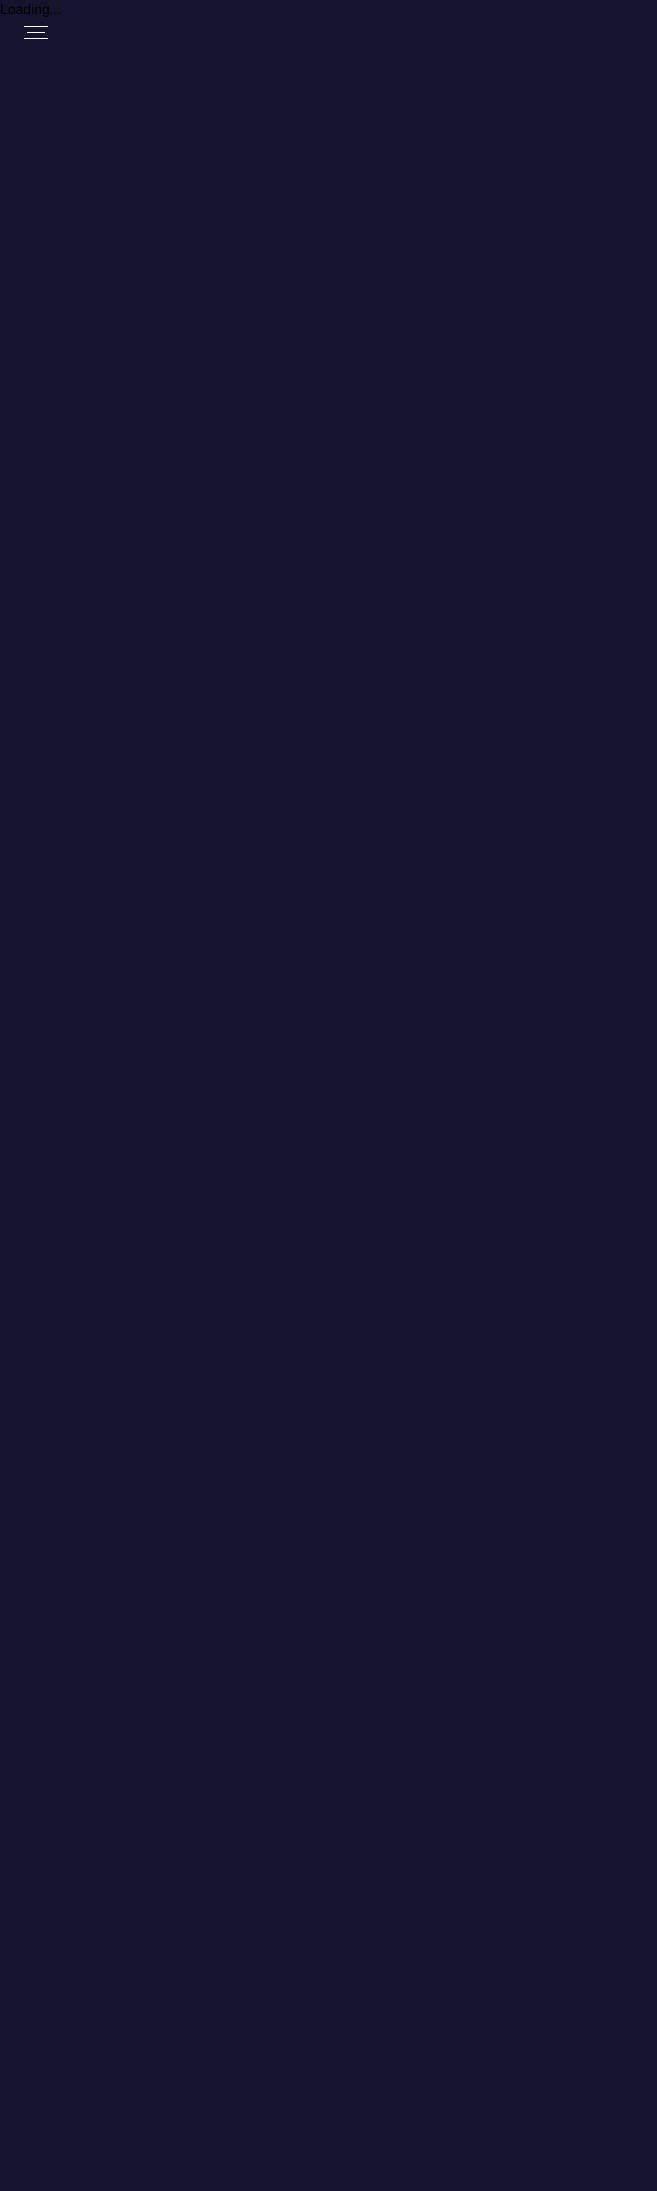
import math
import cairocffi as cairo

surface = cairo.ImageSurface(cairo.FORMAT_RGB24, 657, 2191)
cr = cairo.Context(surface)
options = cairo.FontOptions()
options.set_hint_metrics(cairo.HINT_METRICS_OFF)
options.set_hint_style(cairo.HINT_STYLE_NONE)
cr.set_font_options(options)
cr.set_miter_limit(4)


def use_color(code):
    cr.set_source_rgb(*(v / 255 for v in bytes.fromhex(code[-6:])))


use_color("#14142f")
cr.paint()
cr.select_font_face("Liberation Sans")
cr.set_font_size(14)
use_color("#000000")
cr.move_to(0, 14)
cr.show_text("Loading...")
use_color("#ffffff")
cr.rectangle(24, 26, 24, 1)
cr.fill()
cr.rectangle(27, 32, 18, 1)
cr.fill()
cr.rectangle(24, 38, 24, 1)
cr.fill()
surface.write_to_png("result.png")
